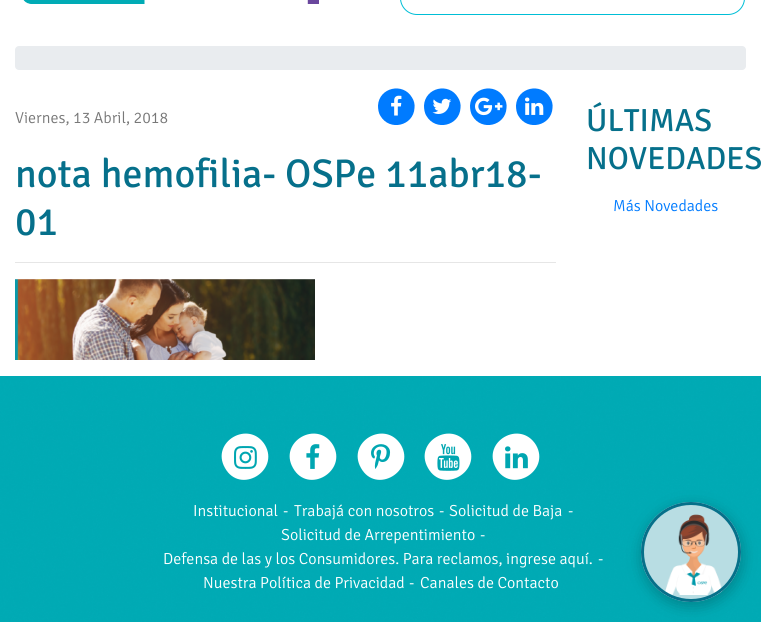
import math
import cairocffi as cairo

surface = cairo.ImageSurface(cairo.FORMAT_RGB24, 761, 622)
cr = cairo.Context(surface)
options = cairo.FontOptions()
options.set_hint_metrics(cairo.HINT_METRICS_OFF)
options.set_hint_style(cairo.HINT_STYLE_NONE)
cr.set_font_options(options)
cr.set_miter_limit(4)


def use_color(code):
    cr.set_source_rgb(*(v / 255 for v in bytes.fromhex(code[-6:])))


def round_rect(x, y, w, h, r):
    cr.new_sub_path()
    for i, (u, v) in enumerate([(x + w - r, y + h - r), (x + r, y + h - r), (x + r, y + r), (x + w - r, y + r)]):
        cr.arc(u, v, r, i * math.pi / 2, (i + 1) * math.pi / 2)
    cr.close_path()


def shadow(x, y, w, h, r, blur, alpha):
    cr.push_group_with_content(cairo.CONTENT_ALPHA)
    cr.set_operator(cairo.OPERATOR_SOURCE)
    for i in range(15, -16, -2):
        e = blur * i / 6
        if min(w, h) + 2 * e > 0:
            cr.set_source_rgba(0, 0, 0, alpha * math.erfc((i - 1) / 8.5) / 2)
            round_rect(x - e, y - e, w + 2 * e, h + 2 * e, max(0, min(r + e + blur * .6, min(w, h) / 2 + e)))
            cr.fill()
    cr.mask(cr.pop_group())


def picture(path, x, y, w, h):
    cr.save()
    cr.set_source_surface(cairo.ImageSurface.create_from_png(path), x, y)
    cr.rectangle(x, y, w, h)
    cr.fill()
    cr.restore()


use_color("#ffffff")
cr.paint()
picture("img1.png", 23, 0, 296, 4)
round_rect(400.5, -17.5, 344, 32, 16.5)
use_color("#00bed6")
cr.set_line_width(1)
cr.stroke()
use_color("#e9ecef")
round_rect(15, 46, 731, 24, 4)
cr.fill()
cr.select_font_face("Signika Light")
cr.set_font_size(16)
use_color("#787878")
cr.move_to(15, 123)
cr.show_text("Viernes, 13 Abril, 2018")
use_color("#007bff")
cr.new_path()
cr.move_to(412, 97.5)
cr.curve_to(414, 100.5, 415, 104.5, 414.5, 108)
cr.curve_to(413.5, 126, 389.5, 131.5, 380.5, 116)
cr.curve_to(378.5, 113, 378, 109, 378, 105.5)
cr.curve_to(379, 87.5, 403, 82, 412, 97.5)
cr.close_path()
cr.fill()
picture("img2.png", 391, 95, 11, 21)
cr.new_path()
cr.move_to(458, 97.5)
cr.curve_to(460, 100.5, 461, 104.5, 460.5, 108)
cr.curve_to(459.5, 126, 435.5, 131.5, 426.5, 116)
cr.curve_to(424.5, 113, 424, 109, 424, 105.5)
cr.curve_to(425, 87.5, 449, 82, 458, 97.5)
cr.close_path()
cr.fill()
picture("img3.png", 432, 98, 20, 16)
cr.new_path()
cr.move_to(504, 97.5)
cr.curve_to(506, 100.5, 507, 104.5, 506.5, 108)
cr.curve_to(505.5, 126, 481.5, 131.5, 472.5, 116)
cr.curve_to(470.5, 113, 470, 109, 470, 105.5)
cr.curve_to(471, 87.5, 495, 82, 504, 97.5)
cr.close_path()
cr.fill()
picture("img4.png", 475, 97, 28, 19)
cr.new_path()
cr.move_to(550, 97.5)
cr.curve_to(552, 100.5, 553, 104.5, 552.5, 108)
cr.curve_to(551.5, 126, 527.5, 131.5, 518.5, 116)
cr.curve_to(516.5, 113, 516, 109, 516, 105.5)
cr.curve_to(517, 87.5, 541, 82, 550, 97.5)
cr.close_path()
cr.fill()
picture("img5.png", 525, 97, 19, 18)
cr.select_font_face("Signika")
cr.set_font_size(40)
use_color("#06708b")
cr.move_to(15, 187)
cr.show_text("nota hemofilia- OSPe 11abr18-")
cr.move_to(15, 235)
cr.show_text("01")
use_color("#e6e6e6")
cr.rectangle(15, 262, 541, 1)
cr.fill()
picture("img6.png", 15, 279, 300, 81)
cr.set_font_size(32)
use_color("#06708b")
cr.move_to(586, 131)
cr.show_text("ÚLTIMAS")
cr.move_to(586, 169)
cr.show_text("NOVEDADES")
cr.select_font_face("Signika Light")
cr.set_font_size(16)
use_color("#007bff")
cr.move_to(613, 211)
cr.show_text("Más Novedades")
picture("img7.png", 0, 376, 761, 246)
use_color("#ffffff")
cr.new_path()
cr.move_to(265, 445)
cr.curve_to(280, 471, 240, 495, 225, 468)
cr.curve_to(210, 442, 249, 419, 265, 445)
cr.close_path()
cr.fill()
picture("img8.png", 234, 446, 23, 23)
cr.new_path()
cr.move_to(333, 445)
cr.curve_to(348, 471, 308, 495, 293, 468)
cr.curve_to(278, 442, 317, 419, 333, 445)
cr.close_path()
cr.fill()
picture("img9.png", 306, 444, 14, 25)
cr.new_path()
cr.move_to(401, 445)
cr.curve_to(416, 471, 376, 495, 361, 468)
cr.curve_to(346, 442, 385, 419, 401, 445)
cr.close_path()
cr.fill()
picture("img10.png", 371, 444, 20, 25)
cr.new_path()
cr.move_to(468, 445)
cr.curve_to(483, 471, 443, 495, 428, 468)
cr.curve_to(413, 442, 452, 419, 468, 445)
cr.close_path()
cr.fill()
picture("img11.png", 437, 444, 23, 27)
cr.new_path()
cr.move_to(536, 445)
cr.curve_to(551, 471, 511, 495, 496, 468)
cr.curve_to(481, 442, 520, 419, 536, 445)
cr.close_path()
cr.fill()
picture("img12.png", 505, 446, 23, 23)
cr.move_to(193, 516)
cr.show_text("Institucional")
cr.move_to(283, 516)
cr.show_text("-")
cr.move_to(294, 516)
cr.show_text("Trabajá con nosotros")
cr.move_to(439, 516)
cr.show_text("-")
cr.move_to(449, 516)
cr.show_text("Solicitud de Baja")
cr.move_to(568, 516)
cr.show_text("-")
cr.move_to(281, 540)
cr.show_text("Solicitud de Arrepentimiento")
cr.move_to(480, 540)
cr.show_text("-")
cr.move_to(163, 564)
cr.show_text("Defensa de las y los Consumidores. Para reclamos, ingrese aquí.")
cr.move_to(598, 564)
cr.show_text("-")
cr.move_to(203, 588)
cr.show_text("Nuestra Política de Privacidad")
cr.move_to(409, 588)
cr.show_text("-")
cr.move_to(420, 588)
cr.show_text("Canales de Contacto")
use_color("#000000")
shadow(642, 506, 100, 100, 50, 7.5, 0.24)
use_color("#b8dde3")
cr.arc(691, 552, 50, 0, 2 * math.pi)
cr.fill()
picture("img13.png", 664, 514, 59, 81)
cr.arc(691, 552, 48.5, 0, 2 * math.pi)
use_color("#06708a")
cr.set_line_width(3)
cr.stroke()
surface.write_to_png("result.png")
